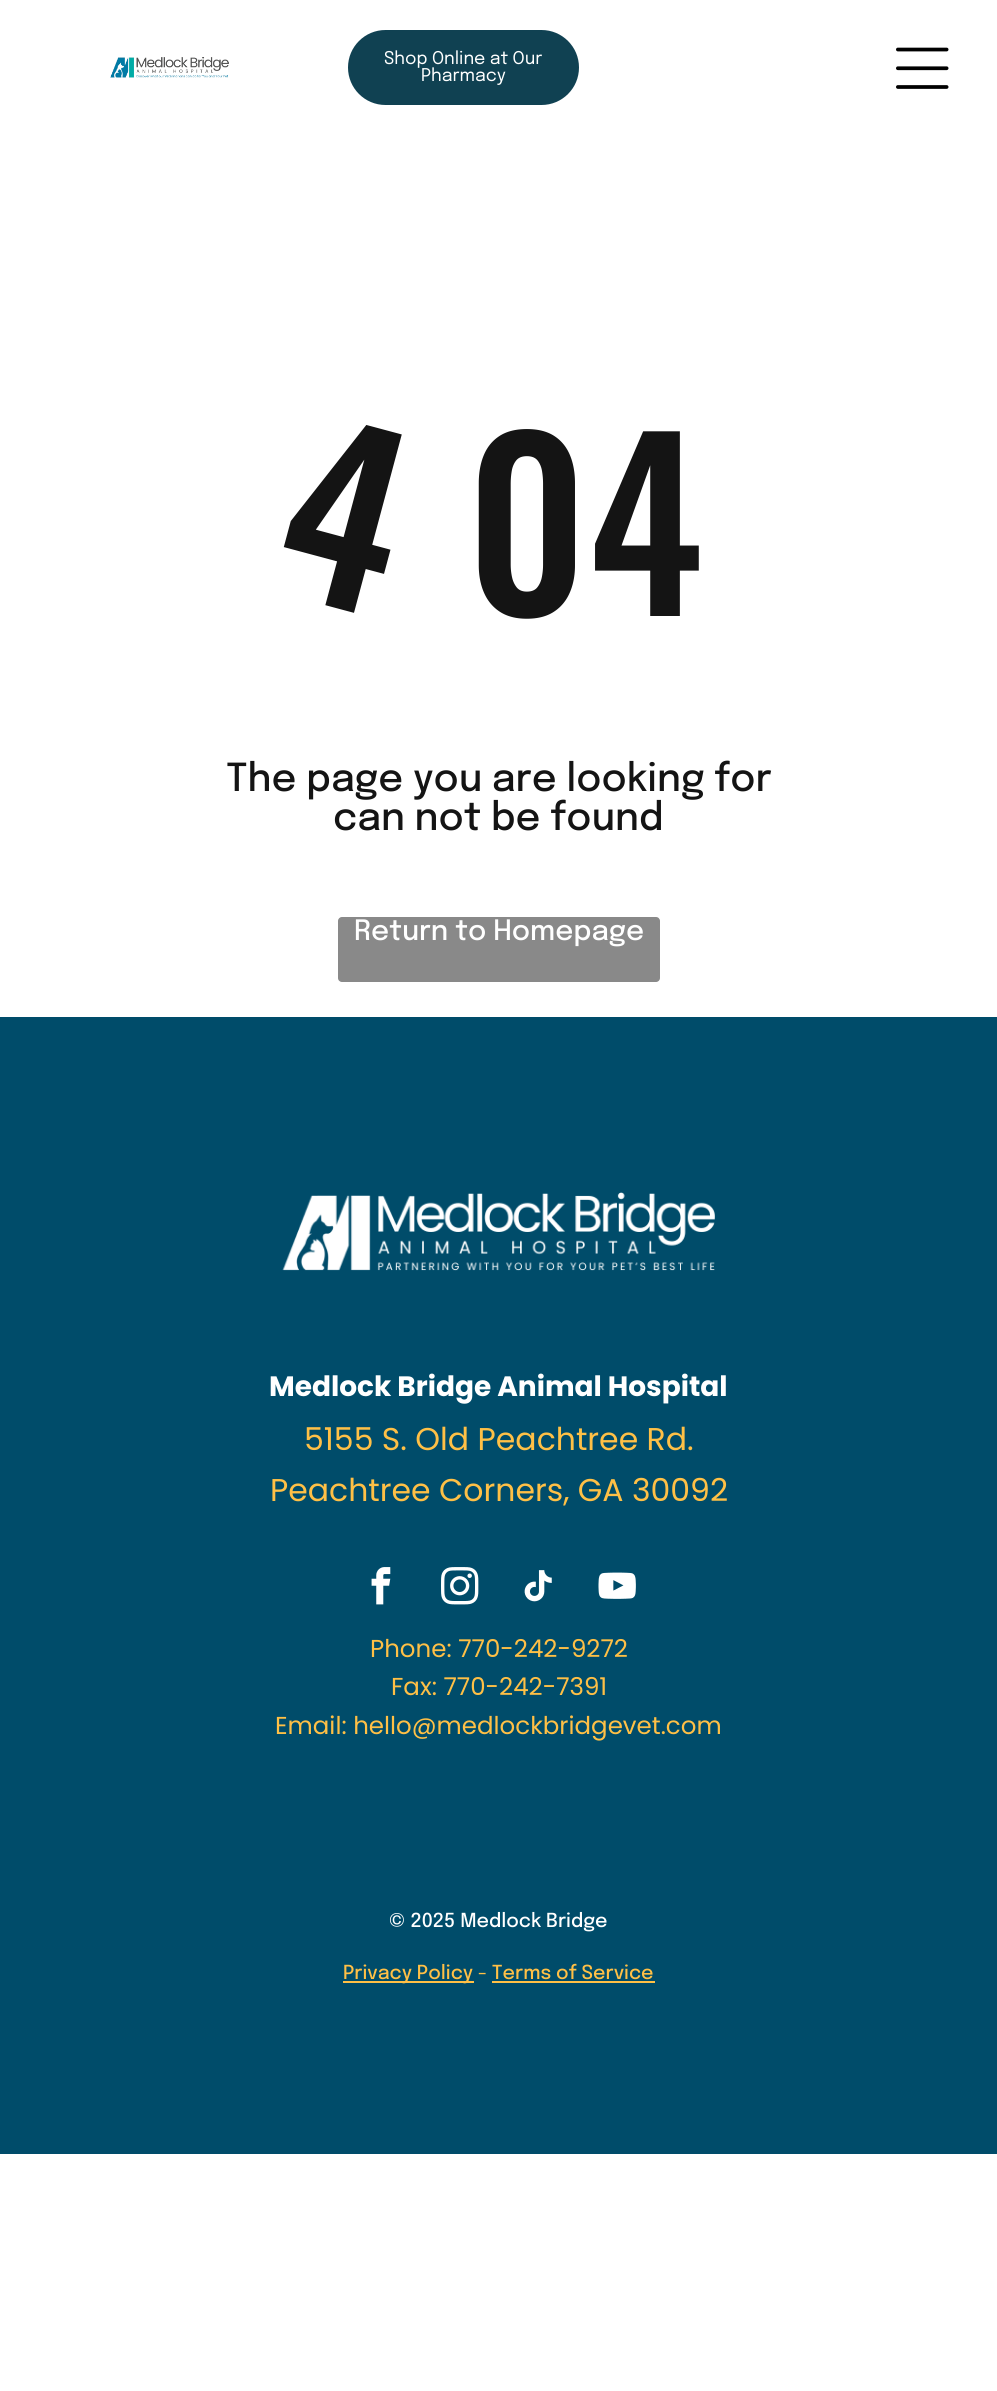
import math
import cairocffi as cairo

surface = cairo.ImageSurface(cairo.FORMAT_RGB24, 997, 2391)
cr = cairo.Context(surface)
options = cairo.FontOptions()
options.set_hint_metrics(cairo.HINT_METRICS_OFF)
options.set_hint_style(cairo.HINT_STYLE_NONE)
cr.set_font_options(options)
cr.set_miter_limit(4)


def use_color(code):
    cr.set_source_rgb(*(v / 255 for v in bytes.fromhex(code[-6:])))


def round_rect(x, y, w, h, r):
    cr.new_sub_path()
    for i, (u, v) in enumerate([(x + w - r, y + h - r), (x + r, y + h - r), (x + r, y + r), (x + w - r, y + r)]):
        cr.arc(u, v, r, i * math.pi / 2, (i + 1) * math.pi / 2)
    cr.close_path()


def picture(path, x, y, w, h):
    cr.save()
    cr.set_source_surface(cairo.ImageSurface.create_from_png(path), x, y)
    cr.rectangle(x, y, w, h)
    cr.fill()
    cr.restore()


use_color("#ffffff")
cr.paint()
picture("img1.png", 110, 57, 119, 21)
use_color("#104152")
round_rect(348, 30, 231, 75, 37.5)
cr.fill()
cr.select_font_face("Epilogue")
cr.set_font_size(17.5)
use_color("#ffffff")
cr.move_to(384, 64)
cr.show_text("Shop Online at Our")
cr.move_to(421, 81)
cr.show_text("Pharmacy")
picture("img2.png", 896, 47, 53, 42)
cr.select_font_face("Oswald Medium")
cr.set_font_size(228)
use_color("#141414")
cr.save()
cr.translate(265, 589)
cr.rotate(15 * math.pi / 180)
cr.move_to(0, 0)
cr.show_text("4")
cr.restore()
cr.move_to(466, 616)
cr.show_text("04")
cr.select_font_face("Epilogue Medium")
cr.set_font_size(38.5)
cr.move_to(226, 791)
cr.show_text("The page you are looking for")
cr.move_to(333, 830)
cr.show_text("can not be found")
use_color("#898989")
round_rect(338, 917, 322, 65, 4)
cr.fill()
cr.set_font_size(28)
use_color("#ffffff")
cr.move_to(354, 940)
cr.show_text("Return to Homepage")
use_color("#004c6a")
cr.rectangle(0, 1017, 997, 1137)
cr.fill()
picture("img3.png", 282, 1192, 433, 79)
cr.select_font_face("Poppins", cairo.FONT_SLANT_NORMAL, cairo.FONT_WEIGHT_BOLD)
use_color("#ffffff")
cr.move_to(269, 1396)
cr.show_text("Medlock Bridge Animal Hospital")
cr.select_font_face("Poppins")
cr.set_font_size(31.5)
use_color("#ffc046")
cr.move_to(304, 1450)
cr.show_text("5155 S. Old Peachtree Rd.")
cr.move_to(270, 1501)
cr.show_text("Peachtree Corners, GA 30092")
picture("img4.png", 371, 1567, 20, 38)
picture("img5.png", 441, 1567, 38, 38)
picture("img6.png", 524, 1570, 28, 32)
picture("img7.png", 598, 1572, 38, 27)
cr.set_font_size(24.5)
cr.move_to(370, 1657)
cr.show_text("Phone: 770-242-9272")
cr.move_to(391, 1695)
cr.show_text("Fax: 770-242-7391")
cr.move_to(275, 1734)
cr.show_text("Email: hello@medlockbridgevet.com")
cr.select_font_face("Epilogue Medium")
cr.set_font_size(19.25)
use_color("#ffffff")
cr.move_to(389, 1927)
cr.show_text("© 2025 Medlock Bridge")
use_color("#ffc046")
cr.rectangle(343, 1981, 131, 2)
cr.fill()
cr.move_to(343, 1979)
cr.show_text("Privacy Policy - Terms of Service")
cr.rectangle(492, 1981, 163, 2)
cr.fill()
surface.write_to_png("result.png")
